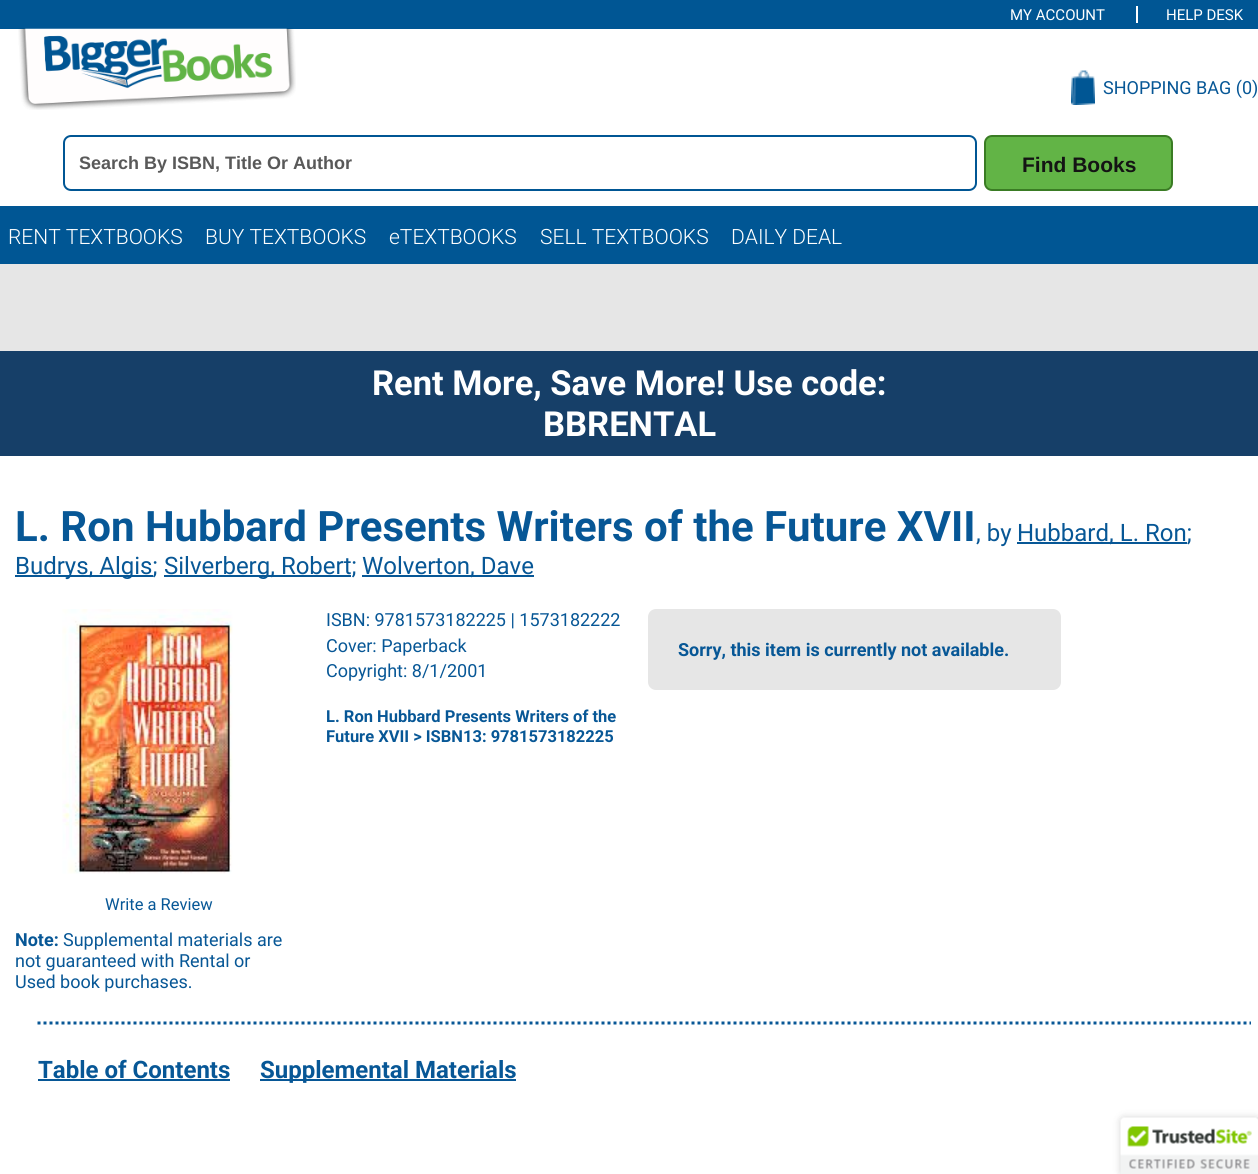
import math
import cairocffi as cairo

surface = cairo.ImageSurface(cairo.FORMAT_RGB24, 1258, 1174)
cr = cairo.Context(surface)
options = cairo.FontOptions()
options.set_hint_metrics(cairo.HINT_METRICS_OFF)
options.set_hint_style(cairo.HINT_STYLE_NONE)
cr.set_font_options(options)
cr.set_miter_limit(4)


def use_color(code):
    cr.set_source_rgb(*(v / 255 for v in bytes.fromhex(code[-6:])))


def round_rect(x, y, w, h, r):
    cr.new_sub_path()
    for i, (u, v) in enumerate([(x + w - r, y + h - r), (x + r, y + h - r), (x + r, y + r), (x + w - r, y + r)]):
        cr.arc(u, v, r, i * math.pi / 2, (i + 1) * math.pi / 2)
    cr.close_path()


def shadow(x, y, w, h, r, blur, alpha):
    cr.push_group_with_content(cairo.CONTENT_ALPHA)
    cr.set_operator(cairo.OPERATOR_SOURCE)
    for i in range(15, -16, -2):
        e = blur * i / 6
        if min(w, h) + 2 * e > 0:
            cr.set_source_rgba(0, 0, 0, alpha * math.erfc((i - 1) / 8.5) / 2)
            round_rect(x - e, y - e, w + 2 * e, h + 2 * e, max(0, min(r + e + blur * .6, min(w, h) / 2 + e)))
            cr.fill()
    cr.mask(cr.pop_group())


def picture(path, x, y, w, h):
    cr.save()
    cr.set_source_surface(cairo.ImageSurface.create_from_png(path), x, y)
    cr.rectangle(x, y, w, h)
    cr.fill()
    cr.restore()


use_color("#ffffff")
cr.paint()
use_color("#005694")
cr.rectangle(0, 0, 1258, 29)
cr.fill()
cr.select_font_face("Roboto")
cr.set_font_size(15)
use_color("#ffffff")
cr.move_to(1010, 20)
cr.show_text("MY ACCOUNT")
cr.rectangle(1136, 6, 2, 17)
cr.fill()
cr.move_to(1166, 20)
cr.show_text("HELP DESK")
picture("img1.png", 18, 28, 278, 82)
picture("img2.png", 1071, 70, 24, 35)
cr.set_font_size(18)
use_color("#075796")
cr.move_to(1103, 94)
cr.show_text("SHOPPING BAG (0)")
round_rect(64, 136, 912, 54, 7)
use_color("#005694")
cr.stroke()
cr.select_font_face("Liberation Sans", cairo.FONT_SLANT_NORMAL, cairo.FONT_WEIGHT_BOLD)
use_color("#595959")
cr.move_to(79, 169)
cr.show_text("Search By ISBN, Title Or Author")
use_color("#62b446")
round_rect(985, 136, 187, 54, 7)
cr.fill_preserve()
use_color("#3a7c24")
cr.stroke()
cr.set_font_size(21)
use_color("#141414")
cr.move_to(1022, 172)
cr.show_text("Find Books")
use_color("#005694")
cr.rectangle(0, 206, 1258, 58)
cr.fill()
cr.select_font_face("Roboto Light")
use_color("#ffffff")
cr.move_to(8, 244)
cr.show_text("RENT TEXTBOOKS")
cr.move_to(205, 244)
cr.show_text("BUY TEXTBOOKS")
cr.move_to(389, 244)
cr.show_text("eTEXTBOOKS")
cr.move_to(540, 244)
cr.show_text("SELL TEXTBOOKS")
cr.move_to(731, 244)
cr.show_text("DAILY DEAL")
use_color("#e6e6e6")
cr.rectangle(0, 264, 1258, 87)
cr.fill()
use_color("#163f68")
cr.rectangle(0, 351, 1258, 105)
cr.fill()
cr.select_font_face("Roboto", cairo.FONT_SLANT_NORMAL, cairo.FONT_WEIGHT_BOLD)
cr.set_font_size(34.5)
use_color("#ffffff")
cr.move_to(372, 395)
cr.show_text("Rent More, Save More! Use code:")
cr.move_to(543, 436)
cr.show_text("BBRENTAL")
cr.set_font_size(42)
use_color("#075796")
cr.move_to(15, 541)
cr.show_text("L. Ron Hubbard Presents Writers of the Future XVII")
cr.select_font_face("Roboto")
cr.set_font_size(24)
cr.move_to(976, 541)
cr.show_text(", by")
cr.rectangle(1017, 542, 170, 2)
cr.fill()
cr.move_to(1017, 541)
cr.show_text("Hubbard, L. Ron;")
cr.rectangle(15, 575, 138, 2)
cr.fill()
cr.move_to(15, 574)
cr.show_text("Budrys, Algis;")
cr.rectangle(164, 575, 187, 2)
cr.fill()
cr.move_to(164, 574)
cr.show_text("Silverberg, Robert;")
cr.rectangle(362, 575, 172, 2)
cr.fill()
cr.move_to(362, 574)
cr.show_text("Wolverton, Dave")
cr.set_font_size(18)
cr.move_to(326, 626)
cr.show_text("ISBN: 9781573182225 | 1573182222")
cr.move_to(326, 652)
cr.show_text("Cover: Paperback")
cr.move_to(326, 677)
cr.show_text("Copyright: 8/1/2001")
cr.select_font_face("Roboto", cairo.FONT_SLANT_NORMAL, cairo.FONT_WEIGHT_BOLD)
cr.set_font_size(16.5)
cr.move_to(326, 722)
cr.show_text("L. Ron Hubbard Presents Writers of the")
cr.move_to(326, 742)
cr.show_text("Future XVII > ISBN13: 9781573182225")
use_color("#e6e6e6")
round_rect(648, 609, 413, 81, 8)
cr.fill()
cr.set_font_size(18)
use_color("#075796")
cr.move_to(678, 656)
cr.show_text("Sorry, this item is currently not available.")
picture("img3.png", 62, 609, 171, 265)
cr.select_font_face("Roboto")
cr.set_font_size(16.5)
cr.move_to(105, 910)
cr.show_text("Write a Review")
cr.select_font_face("Roboto", cairo.FONT_SLANT_NORMAL, cairo.FONT_WEIGHT_BOLD)
cr.set_font_size(18)
cr.move_to(15, 946)
cr.show_text("Note:")
cr.select_font_face("Roboto")
cr.move_to(63, 946)
cr.show_text("Supplemental materials are")
cr.move_to(15, 967)
cr.show_text("not guaranteed with Rental or")
cr.move_to(15, 988)
cr.show_text("Used book purchases.")
cr.new_path()
cr.move_to(37.5, 1023)
cr.line_to(1251, 1023)
use_color("#085796")
cr.set_line_width(3)
cr.set_dash([3, 3])
cr.stroke()
cr.select_font_face("Roboto", cairo.FONT_SLANT_NORMAL, cairo.FONT_WEIGHT_BOLD)
cr.set_font_size(24)
use_color("#075796")
cr.move_to(38, 1078)
cr.show_text("Table of Contents")
cr.rectangle(38, 1079, 192, 2)
cr.fill()
cr.rectangle(260, 1079, 256, 2)
cr.fill()
cr.move_to(260, 1078)
cr.show_text("Supplemental Materials")
use_color("#000000")
shadow(1121, 1118, 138, 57, 3, 4, 0.2)
picture("img4.png", 1120, 1117, 138, 57)
surface.write_to_png("result.png")
